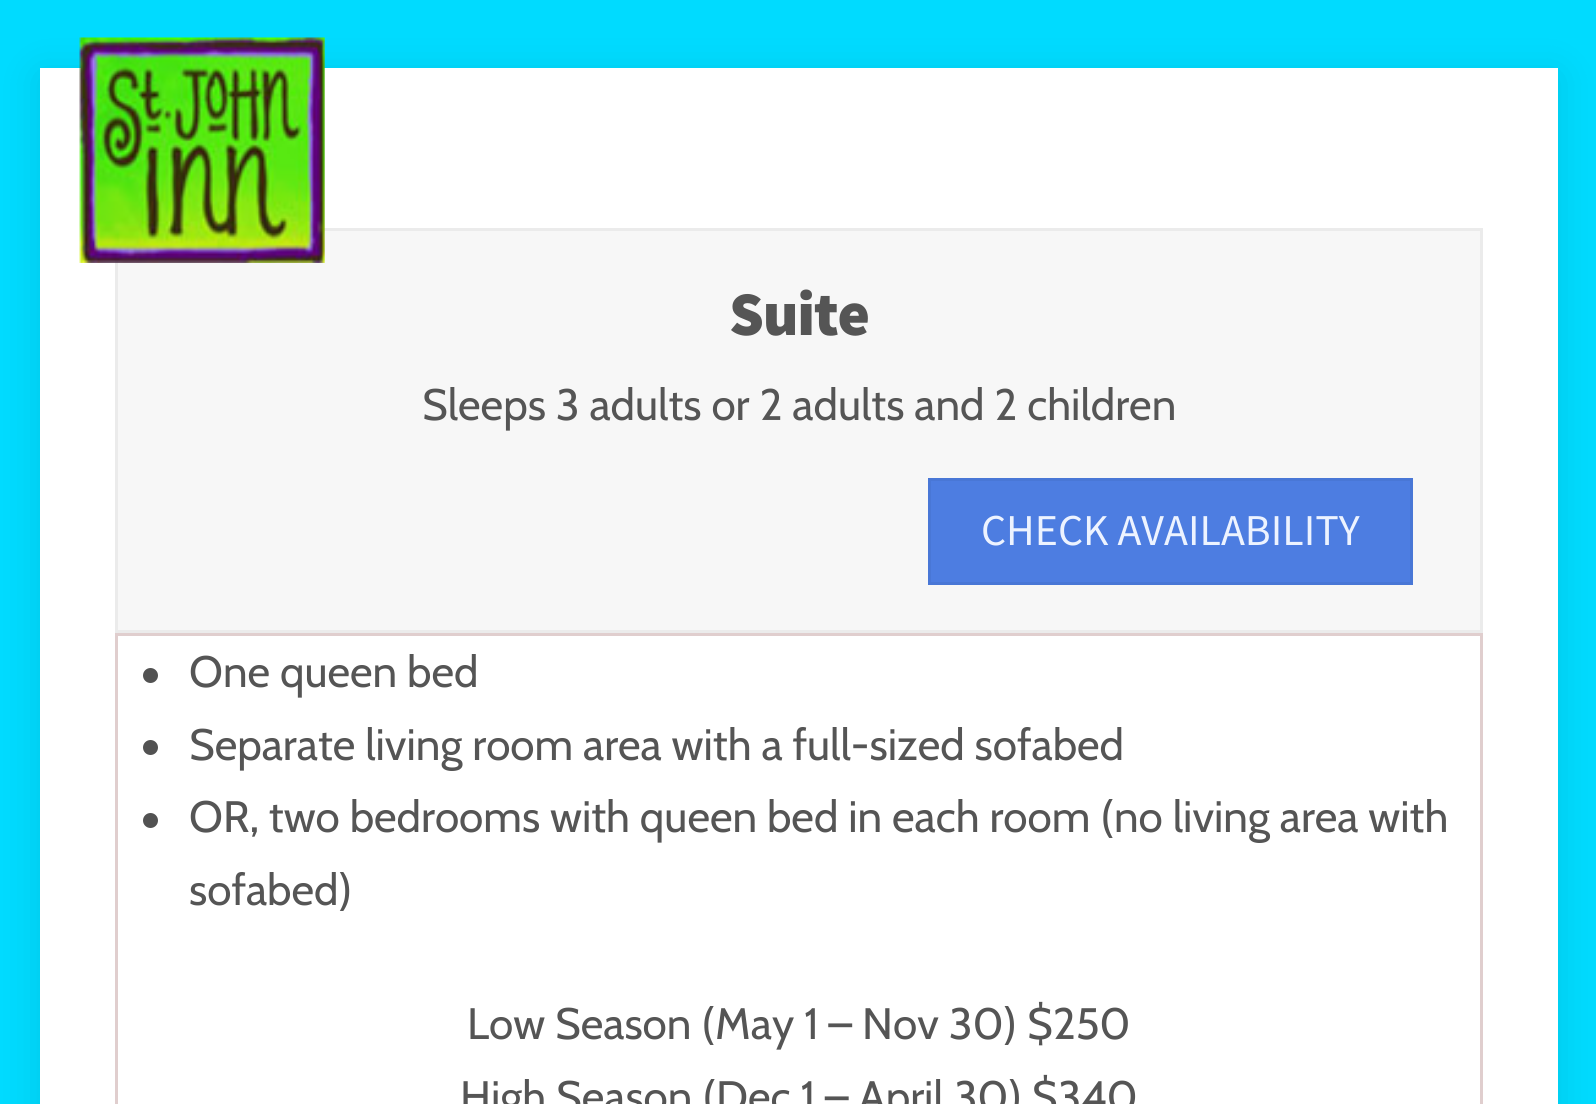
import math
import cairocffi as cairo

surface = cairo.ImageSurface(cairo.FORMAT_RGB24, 1596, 1104)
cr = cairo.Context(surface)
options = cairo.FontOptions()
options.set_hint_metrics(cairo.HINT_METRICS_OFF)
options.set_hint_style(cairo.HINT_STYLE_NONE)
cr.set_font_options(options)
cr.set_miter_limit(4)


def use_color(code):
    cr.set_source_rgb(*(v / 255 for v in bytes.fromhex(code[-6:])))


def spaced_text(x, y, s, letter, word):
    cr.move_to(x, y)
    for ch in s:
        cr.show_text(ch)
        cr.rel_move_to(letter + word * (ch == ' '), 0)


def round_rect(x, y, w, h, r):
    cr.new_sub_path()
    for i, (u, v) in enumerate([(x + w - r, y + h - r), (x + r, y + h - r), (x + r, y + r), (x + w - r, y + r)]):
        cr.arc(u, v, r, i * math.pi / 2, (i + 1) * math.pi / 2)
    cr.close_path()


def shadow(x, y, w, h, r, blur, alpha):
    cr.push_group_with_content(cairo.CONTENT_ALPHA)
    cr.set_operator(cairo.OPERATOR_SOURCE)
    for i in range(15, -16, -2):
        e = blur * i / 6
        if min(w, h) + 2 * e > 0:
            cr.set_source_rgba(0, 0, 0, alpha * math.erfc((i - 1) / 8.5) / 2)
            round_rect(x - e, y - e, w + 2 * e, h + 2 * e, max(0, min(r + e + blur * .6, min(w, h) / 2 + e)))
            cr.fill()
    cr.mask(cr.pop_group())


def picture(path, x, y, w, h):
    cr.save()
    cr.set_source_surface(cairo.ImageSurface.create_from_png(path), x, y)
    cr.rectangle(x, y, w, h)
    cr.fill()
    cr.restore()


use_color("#00dbff")
cr.paint()
use_color("#000000")
shadow(40, 75, 1518, 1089, 0, 20, 0.1)
use_color("#ffffff")
cr.rectangle(40, 68, 1518, 1036)
cr.fill()
use_color("#f7f7f7")
cr.rectangle(116.5, 229.5, 1365, 402)
cr.fill_preserve()
use_color("#ebebeb")
cr.set_line_width(3)
cr.stroke()
picture("img1.png", 79, 37, 246, 226)
cr.select_font_face("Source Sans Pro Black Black")
cr.set_font_size(62)
use_color("#555555")
spaced_text(729, 335, "Suite", -1.25, 0)
cr.select_font_face("Cabin")
cr.set_font_size(44)
cr.move_to(422, 420)
cr.show_text("Sleeps 3 adults or 2 adults and 2 children")
use_color("#4d7de1")
cr.rectangle(929.5, 479.5, 482, 104)
cr.fill_preserve()
use_color("#4977d6")
cr.stroke()
cr.select_font_face("Source Sans Pro")
use_color("#edf3ff")
cr.move_to(981, 545)
cr.show_text("CHECK AVAILABILITY")
cr.rectangle(116.5, 634.5, 1365, 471)
use_color("#e0cece")
cr.stroke()
use_color("#525252")
cr.arc(150.5, 675.5, 7.5, 0, 2 * math.pi)
cr.fill()
cr.select_font_face("Cabin")
use_color("#555555")
cr.move_to(189, 687)
cr.show_text("One queen bed")
use_color("#525252")
cr.new_path()
cr.arc(150.5, 747.5, 7.5, 0, 2 * math.pi)
cr.fill()
use_color("#555555")
cr.move_to(189, 760)
cr.show_text("Separate living room area with a full-sized sofabed")
use_color("#525252")
cr.new_path()
cr.arc(150.5, 820.5, 7.5, 0, 2 * math.pi)
cr.fill()
use_color("#555555")
cr.move_to(189, 832)
cr.show_text("OR, two bedrooms with queen bed in each room (no living area with")
cr.move_to(189, 905)
cr.show_text("sofabed)")
cr.move_to(467, 1039)
cr.show_text("Low Season (May 1 – Nov 30) $250")
cr.move_to(460, 1112)
cr.show_text("High Season (Dec 1 – April 30) $340")
surface.write_to_png("result.png")
